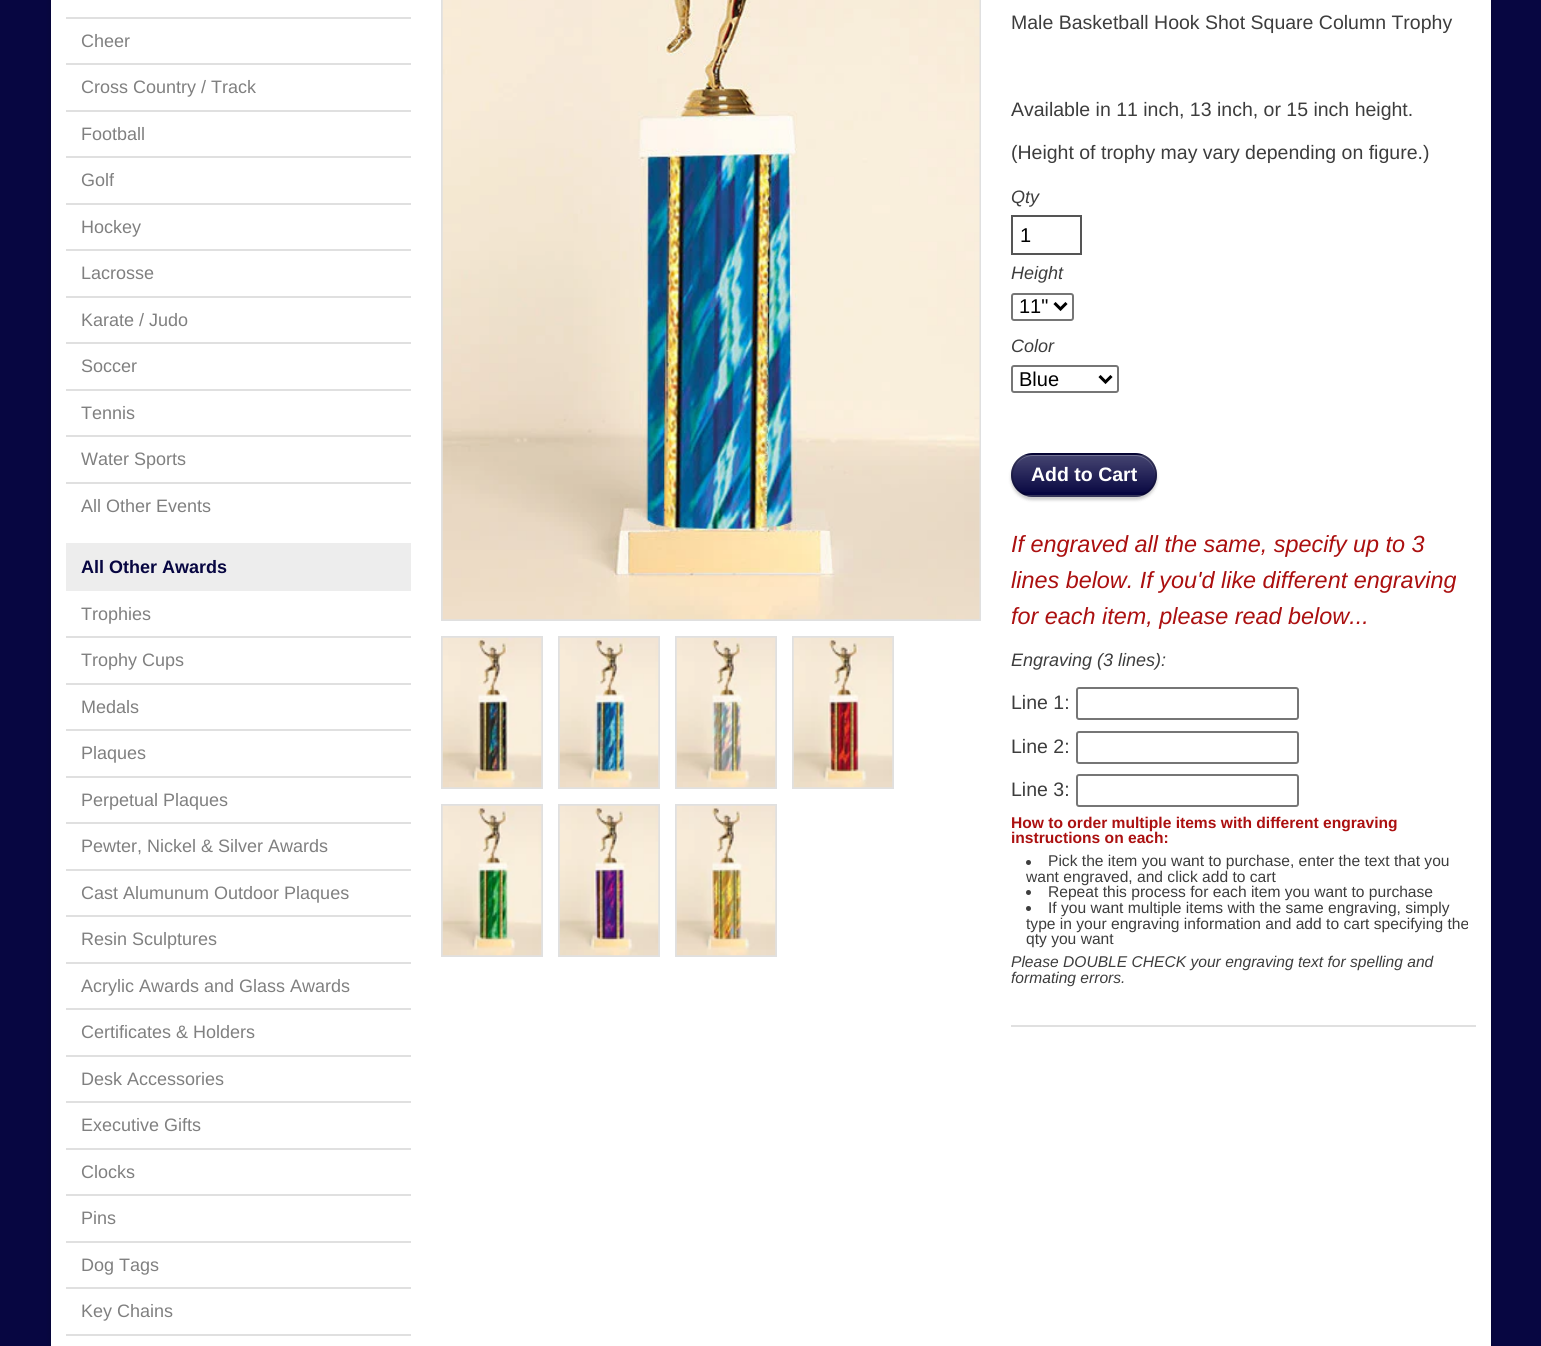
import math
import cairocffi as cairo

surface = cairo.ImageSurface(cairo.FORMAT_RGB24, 1541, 1346)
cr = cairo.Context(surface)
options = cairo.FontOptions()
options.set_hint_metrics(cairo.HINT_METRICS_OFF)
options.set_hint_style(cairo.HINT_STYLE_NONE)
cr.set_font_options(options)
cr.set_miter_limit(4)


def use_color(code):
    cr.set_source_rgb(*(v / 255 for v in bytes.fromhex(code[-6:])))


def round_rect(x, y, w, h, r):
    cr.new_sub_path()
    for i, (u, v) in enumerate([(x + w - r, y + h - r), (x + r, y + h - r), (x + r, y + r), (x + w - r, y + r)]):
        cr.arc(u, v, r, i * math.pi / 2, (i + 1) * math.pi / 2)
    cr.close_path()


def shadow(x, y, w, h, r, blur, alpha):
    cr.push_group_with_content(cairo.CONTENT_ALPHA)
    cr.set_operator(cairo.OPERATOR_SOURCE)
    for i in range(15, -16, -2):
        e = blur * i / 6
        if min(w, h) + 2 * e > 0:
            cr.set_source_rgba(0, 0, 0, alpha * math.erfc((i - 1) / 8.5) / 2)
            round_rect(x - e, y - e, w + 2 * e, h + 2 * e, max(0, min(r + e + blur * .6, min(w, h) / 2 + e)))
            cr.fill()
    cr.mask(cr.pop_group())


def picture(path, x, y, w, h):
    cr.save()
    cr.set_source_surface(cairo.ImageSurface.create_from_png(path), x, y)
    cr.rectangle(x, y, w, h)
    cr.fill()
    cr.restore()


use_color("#070641")
cr.paint()
use_color("#000000")
shadow(51, -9, 1440, 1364, 0, 3, 0.2)
use_color("#ffffff")
cr.rectangle(51, 0, 1440, 1346)
cr.fill()
use_color("#e0e0e0")
cr.rectangle(66, 17, 345, 2)
cr.fill()
cr.rectangle(66, 63, 345, 2)
cr.fill()
cr.select_font_face("Liberation Sans")
cr.set_font_size(18)
use_color("#808080")
cr.move_to(81, 47)
cr.show_text("Cheer")
use_color("#e0e0e0")
cr.rectangle(66, 110, 345, 2)
cr.fill()
use_color("#808080")
cr.move_to(81, 93)
cr.show_text("Cross Country / Track")
use_color("#e0e0e0")
cr.rectangle(66, 156, 345, 2)
cr.fill()
use_color("#808080")
cr.move_to(81, 140)
cr.show_text("Football")
use_color("#e0e0e0")
cr.rectangle(66, 203, 345, 2)
cr.fill()
use_color("#808080")
cr.move_to(81, 186)
cr.show_text("Golf")
use_color("#e0e0e0")
cr.rectangle(66, 249, 345, 2)
cr.fill()
use_color("#808080")
cr.move_to(81, 233)
cr.show_text("Hockey")
use_color("#e0e0e0")
cr.rectangle(66, 296, 345, 2)
cr.fill()
use_color("#808080")
cr.move_to(81, 279)
cr.show_text("Lacrosse")
use_color("#e0e0e0")
cr.rectangle(66, 342, 345, 2)
cr.fill()
use_color("#808080")
cr.move_to(81, 326)
cr.show_text("Karate / Judo")
use_color("#e0e0e0")
cr.rectangle(66, 389, 345, 2)
cr.fill()
use_color("#808080")
cr.move_to(81, 372)
cr.show_text("Soccer")
use_color("#e0e0e0")
cr.rectangle(66, 435, 345, 2)
cr.fill()
use_color("#808080")
cr.move_to(81, 419)
cr.show_text("Tennis")
use_color("#e0e0e0")
cr.rectangle(66, 482, 345, 2)
cr.fill()
use_color("#808080")
cr.move_to(81, 465)
cr.show_text("Water Sports")
cr.move_to(81, 512)
cr.show_text("All Other Events")
use_color("#ededed")
cr.rectangle(66, 543, 345, 48)
cr.fill()
cr.select_font_face("Liberation Sans", cairo.FONT_SLANT_NORMAL, cairo.FONT_WEIGHT_BOLD)
use_color("#070641")
cr.move_to(81, 573)
cr.show_text("All Other Awards")
use_color("#e0e0e0")
cr.rectangle(66, 636, 345, 2)
cr.fill()
cr.select_font_face("Liberation Sans")
use_color("#808080")
cr.move_to(81, 620)
cr.show_text("Trophies")
use_color("#e0e0e0")
cr.rectangle(66, 683, 345, 2)
cr.fill()
use_color("#808080")
cr.move_to(81, 666)
cr.show_text("Trophy Cups")
use_color("#e0e0e0")
cr.rectangle(66, 729, 345, 2)
cr.fill()
use_color("#808080")
cr.move_to(81, 713)
cr.show_text("Medals")
use_color("#e0e0e0")
cr.rectangle(66, 776, 345, 2)
cr.fill()
use_color("#808080")
cr.move_to(81, 759)
cr.show_text("Plaques")
use_color("#e0e0e0")
cr.rectangle(66, 822, 345, 2)
cr.fill()
use_color("#808080")
cr.move_to(81, 806)
cr.show_text("Perpetual Plaques")
use_color("#e0e0e0")
cr.rectangle(66, 869, 345, 2)
cr.fill()
use_color("#808080")
cr.move_to(81, 852)
cr.show_text("Pewter, Nickel & Silver Awards")
use_color("#e0e0e0")
cr.rectangle(66, 915, 345, 2)
cr.fill()
use_color("#808080")
cr.move_to(81, 899)
cr.show_text("Cast Alumunum Outdoor Plaques")
use_color("#e0e0e0")
cr.rectangle(66, 962, 345, 2)
cr.fill()
use_color("#808080")
cr.move_to(81, 945)
cr.show_text("Resin Sculptures")
use_color("#e0e0e0")
cr.rectangle(66, 1008, 345, 2)
cr.fill()
use_color("#808080")
cr.move_to(81, 992)
cr.show_text("Acrylic Awards and Glass Awards")
use_color("#e0e0e0")
cr.rectangle(66, 1055, 345, 2)
cr.fill()
use_color("#808080")
cr.move_to(81, 1038)
cr.show_text("Certificates & Holders")
use_color("#e0e0e0")
cr.rectangle(66, 1101, 345, 2)
cr.fill()
use_color("#808080")
cr.move_to(81, 1085)
cr.show_text("Desk Accessories")
use_color("#e0e0e0")
cr.rectangle(66, 1148, 345, 2)
cr.fill()
use_color("#808080")
cr.move_to(81, 1131)
cr.show_text("Executive Gifts")
use_color("#e0e0e0")
cr.rectangle(66, 1194, 345, 2)
cr.fill()
use_color("#808080")
cr.move_to(81, 1178)
cr.show_text("Clocks")
use_color("#e0e0e0")
cr.rectangle(66, 1241, 345, 2)
cr.fill()
use_color("#808080")
cr.move_to(81, 1224)
cr.show_text("Pins")
use_color("#e0e0e0")
cr.rectangle(66, 1287, 345, 2)
cr.fill()
use_color("#808080")
cr.move_to(81, 1271)
cr.show_text("Dog Tags")
use_color("#e0e0e0")
cr.rectangle(66, 1334, 345, 2)
cr.fill()
use_color("#808080")
cr.move_to(81, 1317)
cr.show_text("Key Chains")
cr.rectangle(442, -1, 538, 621)
use_color("#e0e0e0")
cr.stroke()
picture("img1.png", 442, 0, 538, 620)
cr.rectangle(442, 637, 100, 151)
cr.stroke()
picture("img2.png", 442, 637, 100, 151)
cr.rectangle(559, 637, 100, 151)
cr.stroke()
picture("img3.png", 559, 637, 100, 151)
cr.rectangle(676, 637, 100, 151)
cr.stroke()
picture("img4.png", 676, 637, 100, 151)
cr.rectangle(793, 637, 100, 151)
cr.stroke()
picture("img5.png", 793, 637, 100, 151)
cr.rectangle(442, 805, 100, 151)
cr.stroke()
picture("img6.png", 442, 805, 100, 151)
cr.rectangle(559, 805, 100, 151)
cr.stroke()
picture("img7.png", 559, 805, 100, 151)
cr.rectangle(676, 805, 100, 151)
cr.stroke()
picture("img8.png", 676, 805, 100, 151)
cr.set_font_size(19.5)
use_color("#3d3d3d")
cr.move_to(1011, 29)
cr.show_text("Male Basketball Hook Shot Square Column Trophy")
cr.move_to(1011, 116)
cr.show_text("Available in 11 inch, 13 inch, or 15 inch height.")
cr.move_to(1011, 159)
cr.show_text("(Height of trophy may vary depending on figure.)")
use_color("#e0e0e0")
cr.rectangle(1011, 1025, 465, 2)
cr.fill()
cr.select_font_face("Liberation Sans", cairo.FONT_SLANT_ITALIC)
cr.set_font_size(18)
use_color("#3d3d3d")
cr.move_to(1011, 203)
cr.show_text("Qty")
cr.rectangle(1012, 216, 69, 38)
use_color("#555555")
cr.stroke()
cr.select_font_face("Liberation Sans")
cr.set_font_size(20)
use_color("#000000")
cr.move_to(1020, 242)
cr.show_text("1")
cr.select_font_face("Liberation Sans", cairo.FONT_SLANT_ITALIC)
cr.set_font_size(18)
use_color("#3d3d3d")
cr.move_to(1011, 279)
cr.show_text("Height")
round_rect(1012, 294, 61, 26, 2)
use_color("#767676")
cr.stroke()
cr.new_path()
cr.move_to(1054.5, 303)
cr.line_to(1060.5, 309)
cr.line_to(1066.5, 303)
use_color("#000000")
cr.set_line_width(3)
cr.stroke()
cr.select_font_face("Liberation Sans")
cr.set_font_size(20)
cr.move_to(1019, 313)
cr.show_text("11\"")
cr.select_font_face("Liberation Sans", cairo.FONT_SLANT_ITALIC)
cr.set_font_size(18)
use_color("#3d3d3d")
cr.move_to(1011, 352)
cr.show_text("Color")
round_rect(1012, 366, 106, 26, 2)
use_color("#767676")
cr.set_line_width(2)
cr.stroke()
cr.new_path()
cr.move_to(1099.5, 376)
cr.line_to(1105.5, 382)
cr.line_to(1111.5, 376)
use_color("#000000")
cr.set_line_width(3)
cr.stroke()
cr.select_font_face("Liberation Sans")
cr.set_font_size(20)
cr.move_to(1019, 386)
cr.show_text("Blue")
use_color("#000000")
shadow(1011, 456, 146, 44, 22, 1.5, 0.2)
use_color("#070641")
round_rect(1011, 453, 146, 44, 22)
cr.fill()
cr.save()
round_rect(1011, 453, 146, 44, 22)
cr.clip()
gradient = cairo.LinearGradient(1013, 495, 1013, 455)
gradient.add_color_stop_rgba(0, 1, 1, 1, 0)
gradient.add_color_stop_rgba(1, 1, 1, 1, 0.25)
cr.set_source(gradient)
cr.rectangle(1011, 455, 146, 37)
cr.fill()
gradient = cairo.LinearGradient(1013, 536, 1013, 495)
gradient.add_color_stop_rgba(0, 1, 1, 1, 0)
gradient.add_color_stop_rgba(1, 1, 1, 1, 0.25)
cr.set_source(gradient)
cr.rectangle(1024, 495, 120, 2)
cr.fill()
cr.restore()
cr.set_source_rgba(1, 1, 1, 0.25)
cr.new_path()
cr.move_to(1033, 456)
cr.line_to(1135, 456)
cr.curve_to(1146, 456, 1155, 465, 1155, 476)
cr.line_to(1155, 475)
cr.curve_to(1155, 464, 1146, 455, 1135, 455)
cr.line_to(1033, 455)
cr.curve_to(1026, 455, 1019, 459, 1016, 465)
cr.curve_to(1020, 459, 1026, 456, 1033, 456)
cr.close_path()
cr.fill()
round_rect(1012, 454, 144, 42, 21)
cr.set_source_rgba(0, 0, 0, 0.2)
cr.set_line_width(2)
cr.stroke()
cr.select_font_face("Liberation Sans", cairo.FONT_SLANT_NORMAL, cairo.FONT_WEIGHT_BOLD)
cr.set_font_size(19.5)
use_color("#ffffff")
cr.move_to(1031, 481)
cr.show_text("Add to Cart")
cr.select_font_face("Liberation Sans", cairo.FONT_SLANT_ITALIC)
cr.set_font_size(23.4)
use_color("#ab1010")
cr.move_to(1011, 552)
cr.show_text("If engraved all the same, specify up to 3")
cr.move_to(1011, 588)
cr.show_text("lines below. If you'd like different engraving")
cr.move_to(1011, 624)
cr.show_text("for each item, please read below...")
cr.set_font_size(18)
use_color("#3d3d3d")
cr.move_to(1011, 666)
cr.show_text("Engraving (3 lines):")
cr.select_font_face("Liberation Sans")
cr.set_font_size(19.5)
cr.move_to(1011, 709)
cr.show_text("Line 1:")
round_rect(1077, 688, 221, 31, 2)
use_color("#767676")
cr.stroke()
use_color("#3d3d3d")
cr.move_to(1011, 753)
cr.show_text("Line 2:")
round_rect(1077, 732, 221, 31, 2)
use_color("#767676")
cr.stroke()
use_color("#3d3d3d")
cr.move_to(1011, 796)
cr.show_text("Line 3:")
round_rect(1077, 775, 221, 31, 2)
use_color("#767676")
cr.stroke()
cr.select_font_face("Liberation Sans", cairo.FONT_SLANT_NORMAL, cairo.FONT_WEIGHT_BOLD)
cr.set_font_size(15.6)
use_color("#ab1010")
cr.move_to(1011, 828)
cr.show_text("How to order multiple items with different engraving")
cr.move_to(1011, 843)
cr.show_text("instructions on each:")
use_color("#3d3d3d")
cr.new_path()
cr.arc(1028.5, 862.5, 2.5, 0, 2 * math.pi)
cr.fill()
cr.select_font_face("Liberation Sans")
cr.move_to(1048, 866)
cr.show_text("Pick the item you want to purchase, enter the text that you")
cr.move_to(1026, 882)
cr.show_text("want engraved, and click add to cart")
cr.new_path()
cr.arc(1028.5, 892.5, 2.5, 0, 2 * math.pi)
cr.fill()
cr.move_to(1048, 897)
cr.show_text("Repeat this process for each item you want to purchase")
cr.new_path()
cr.arc(1028.5, 908.5, 2.5, 0, 2 * math.pi)
cr.fill()
cr.move_to(1048, 913)
cr.show_text("If you want multiple items with the same engraving, simply")
cr.move_to(1026, 929)
cr.show_text("type in your engraving information and add to cart specifying the")
cr.move_to(1026, 944)
cr.show_text("qty you want")
cr.select_font_face("Liberation Sans", cairo.FONT_SLANT_ITALIC)
cr.move_to(1011, 967)
cr.show_text("Please DOUBLE CHECK your engraving text for spelling and")
cr.move_to(1011, 983)
cr.show_text("formating errors.")
surface.write_to_png("result.png")
